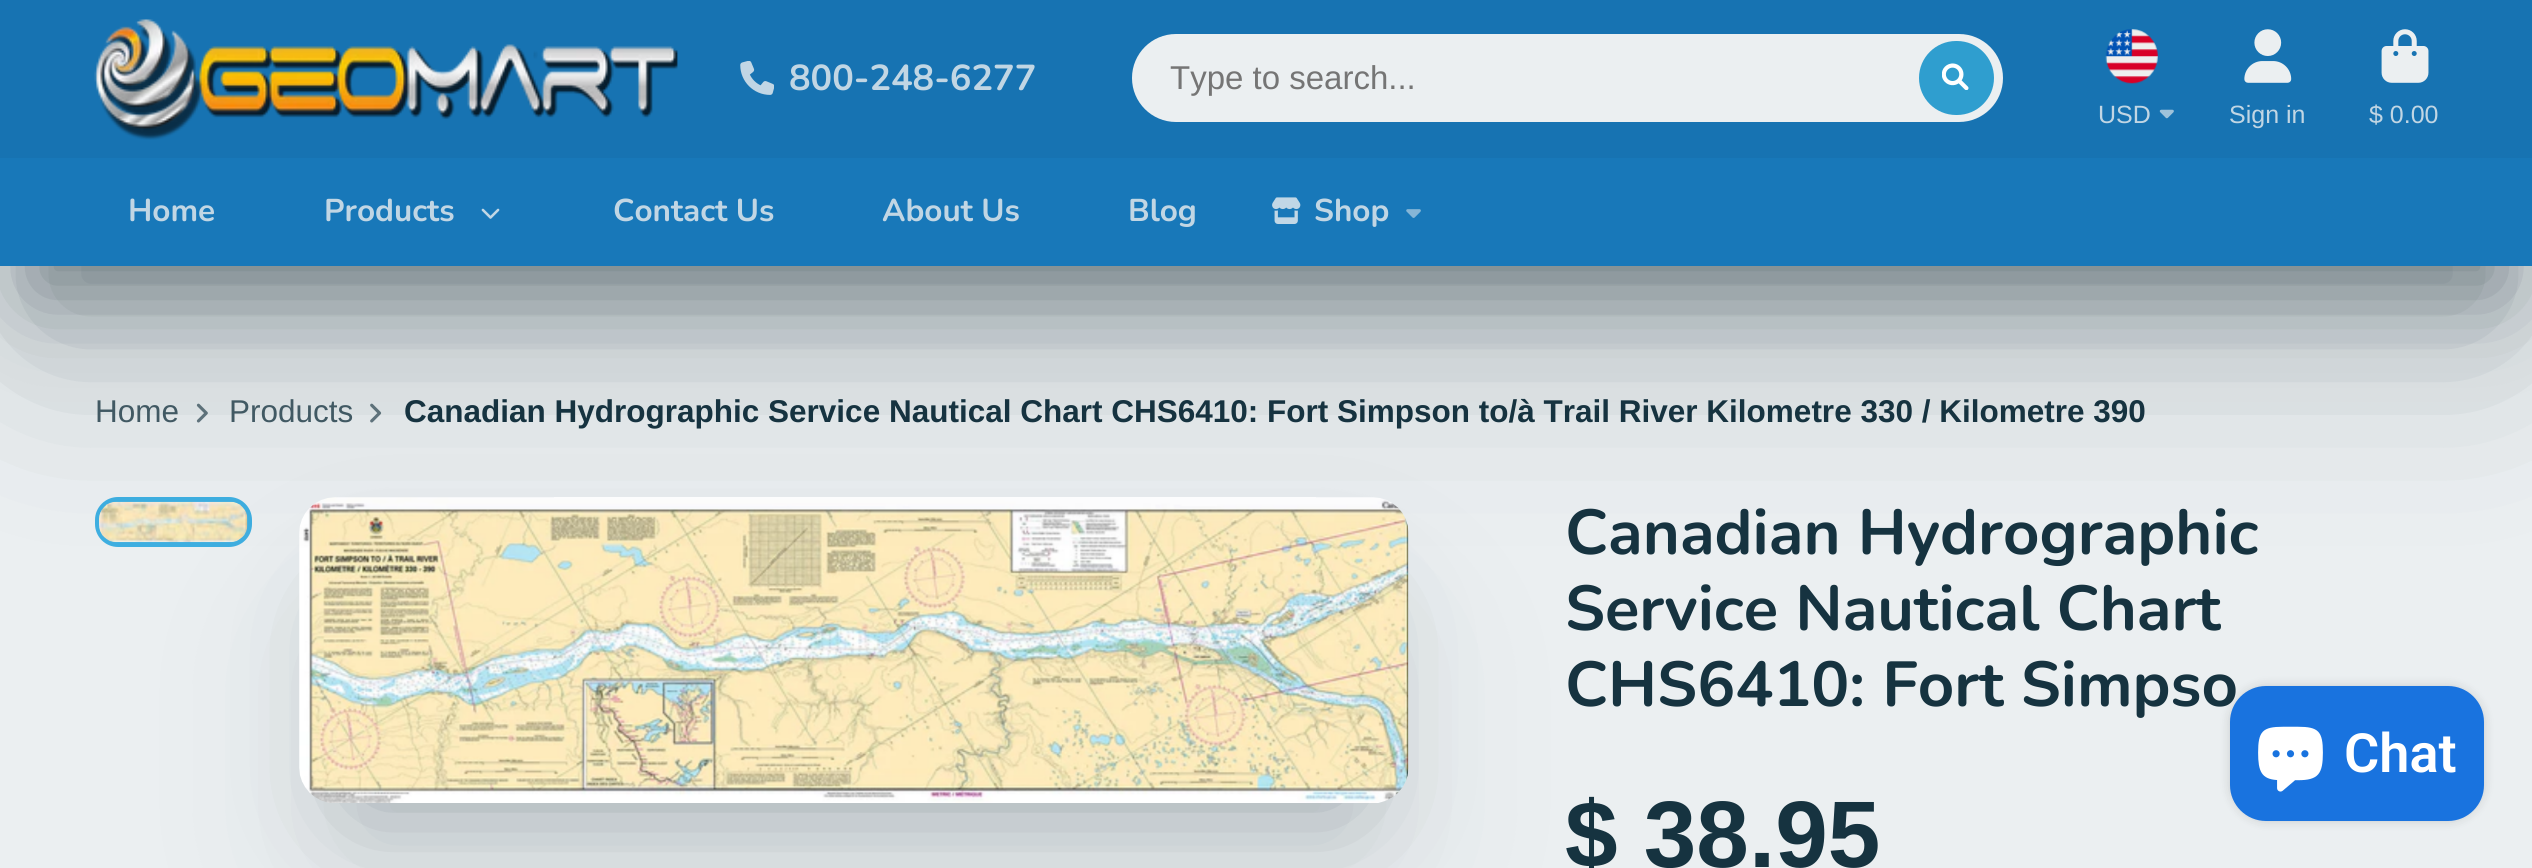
import math
import cairocffi as cairo

surface = cairo.ImageSurface(cairo.FORMAT_RGB24, 2532, 868)
cr = cairo.Context(surface)
options = cairo.FontOptions()
options.set_hint_metrics(cairo.HINT_METRICS_OFF)
options.set_hint_style(cairo.HINT_STYLE_NONE)
cr.set_font_options(options)
cr.set_miter_limit(4)


def use_color(code):
    cr.set_source_rgb(*(v / 255 for v in bytes.fromhex(code[-6:])))


def round_rect(x, y, w, h, r):
    cr.new_sub_path()
    for i, (u, v) in enumerate([(x + w - r, y + h - r), (x + r, y + h - r), (x + r, y + r), (x + w - r, y + r)]):
        cr.arc(u, v, r, i * math.pi / 2, (i + 1) * math.pi / 2)
    cr.close_path()


def shadow(x, y, w, h, r, blur, alpha):
    cr.push_group_with_content(cairo.CONTENT_ALPHA)
    cr.set_operator(cairo.OPERATOR_SOURCE)
    for i in range(15, -16, -2):
        e = blur * i / 6
        if min(w, h) + 2 * e > 0:
            cr.set_source_rgba(0, 0, 0, alpha * math.erfc((i - 1) / 8.5) / 2)
            round_rect(x - e, y - e, w + 2 * e, h + 2 * e, max(0, min(r + e + blur * .6, min(w, h) / 2 + e)))
            cr.fill()
    cr.mask(cr.pop_group())


def picture(path, x, y, w, h):
    cr.save()
    cr.set_source_surface(cairo.ImageSurface.create_from_png(path), x, y)
    cr.rectangle(x, y, w, h)
    cr.fill()
    cr.restore()


use_color("#ebeff1")
cr.paint()
picture("img11.png", 196, 403, 12, 20)
picture("img12.png", 370, 403, 12, 20)
use_color("#0f242d")
shadow(32, 90, 2470, 203, 0, 43.5, 0.4)
round_rect(97.5, 499.5, 152, 45, 20.5)
use_color("#3eafe1")
cr.set_line_width(5)
cr.stroke()
picture("img14.png", 99, 501, 149, 42)
use_color("#0f242d")
shadow(358, 617, 992, 186, 0, 59, 0.3)
shadow(340, 635, 1030, 227, 0, 98.5, 0.1)
picture("img13.png", 299, 497, 1110, 306)
shadow(32, 131, 2470, 202, 0, 98.5, 0.3)
use_color("#1773b2")
cr.rectangle(0, 0, 2532, 158)
cr.fill()
picture("img1.png", 94, 19, 584, 121)
picture("img2.png", 740, 61, 34, 34)
cr.select_font_face("Nunito", cairo.FONT_SLANT_NORMAL, cairo.FONT_WEIGHT_BOLD)
cr.set_font_size(36)
use_color("#c1d6e4")
cr.move_to(789, 90)
cr.show_text("800-248-6277")
use_color("#ebeff1")
round_rect(1132, 34, 871, 88, 44)
cr.fill()
cr.select_font_face("Liberation Sans")
cr.set_font_size(33)
use_color("#757575")
cr.move_to(1170, 89)
cr.show_text("Type to search...")
use_color("#2f9ecf")
round_rect(1919, 41, 75, 74, 37)
cr.fill()
picture("img3.png", 1942, 63, 27, 27)
picture("img4.png", 2105, 29, 53, 55)
cr.set_font_size(25)
use_color("#c1d6e4")
cr.move_to(2098, 123)
cr.show_text("USD")
picture("img5.png", 2159, 109, 15, 10)
picture("img6.png", 2244, 29, 48, 54)
cr.move_to(2229, 123)
cr.show_text("Sign in")
picture("img7.png", 2381, 29, 48, 54)
cr.move_to(2369, 123)
cr.show_text("$ 0.00")
use_color("#1878b9")
cr.rectangle(0, 158, 2532, 108)
cr.fill()
cr.select_font_face("Nunito", cairo.FONT_SLANT_NORMAL, cairo.FONT_WEIGHT_BOLD)
cr.set_font_size(31.5)
use_color("#c1d6e4")
cr.move_to(128, 221)
cr.show_text("Home")
cr.move_to(324, 221)
cr.show_text("Products")
picture("img8.png", 481, 208, 19, 11)
cr.move_to(613, 221)
cr.show_text("Contact Us")
cr.move_to(882, 221)
cr.show_text("About Us")
cr.move_to(1128, 221)
cr.show_text("Blog")
picture("img9.png", 1272, 197, 29, 27)
cr.move_to(1314, 221)
cr.show_text("Shop")
picture("img10.png", 1406, 209, 15, 9)
cr.select_font_face("Liberation Sans")
use_color("#415963")
cr.move_to(95, 422)
cr.show_text("Home")
cr.move_to(229, 422)
cr.show_text("Products")
cr.select_font_face("Liberation Sans", cairo.FONT_SLANT_NORMAL, cairo.FONT_WEIGHT_BOLD)
use_color("#163340")
cr.move_to(404, 422)
cr.show_text("Canadian Hydrographic Service Nautical Chart CHS6410: Fort Simpson to/à Trail River Kilometre 330 / Kilometre 390")
cr.select_font_face("Nunito", cairo.FONT_SLANT_NORMAL, cairo.FONT_WEIGHT_BOLD)
cr.set_font_size(63.4)
cr.move_to(1565, 554)
cr.show_text("Canadian Hydrographic")
cr.move_to(1565, 630)
cr.show_text("Service Nautical Chart")
cr.move_to(1565, 706)
cr.show_text("CHS6410: Fort Simpso")
cr.select_font_face("Liberation Sans", cairo.FONT_SLANT_NORMAL, cairo.FONT_WEIGHT_BOLD)
cr.set_font_size(94.5)
cr.move_to(1565, 867)
cr.show_text("$ 38.95")
use_color("#000000")
shadow(2230, 686, 254, 135, 36, 5.5, 0.15)
use_color("#1973df")
round_rect(2230, 686, 254, 135, 36)
cr.fill()
picture("img15.png", 2258, 726, 65, 66)
cr.select_font_face("Roboto SemiBold")
cr.set_font_size(54)
use_color("#ffffff")
cr.move_to(2344, 772)
cr.show_text("Chat")
surface.write_to_png("result.png")
